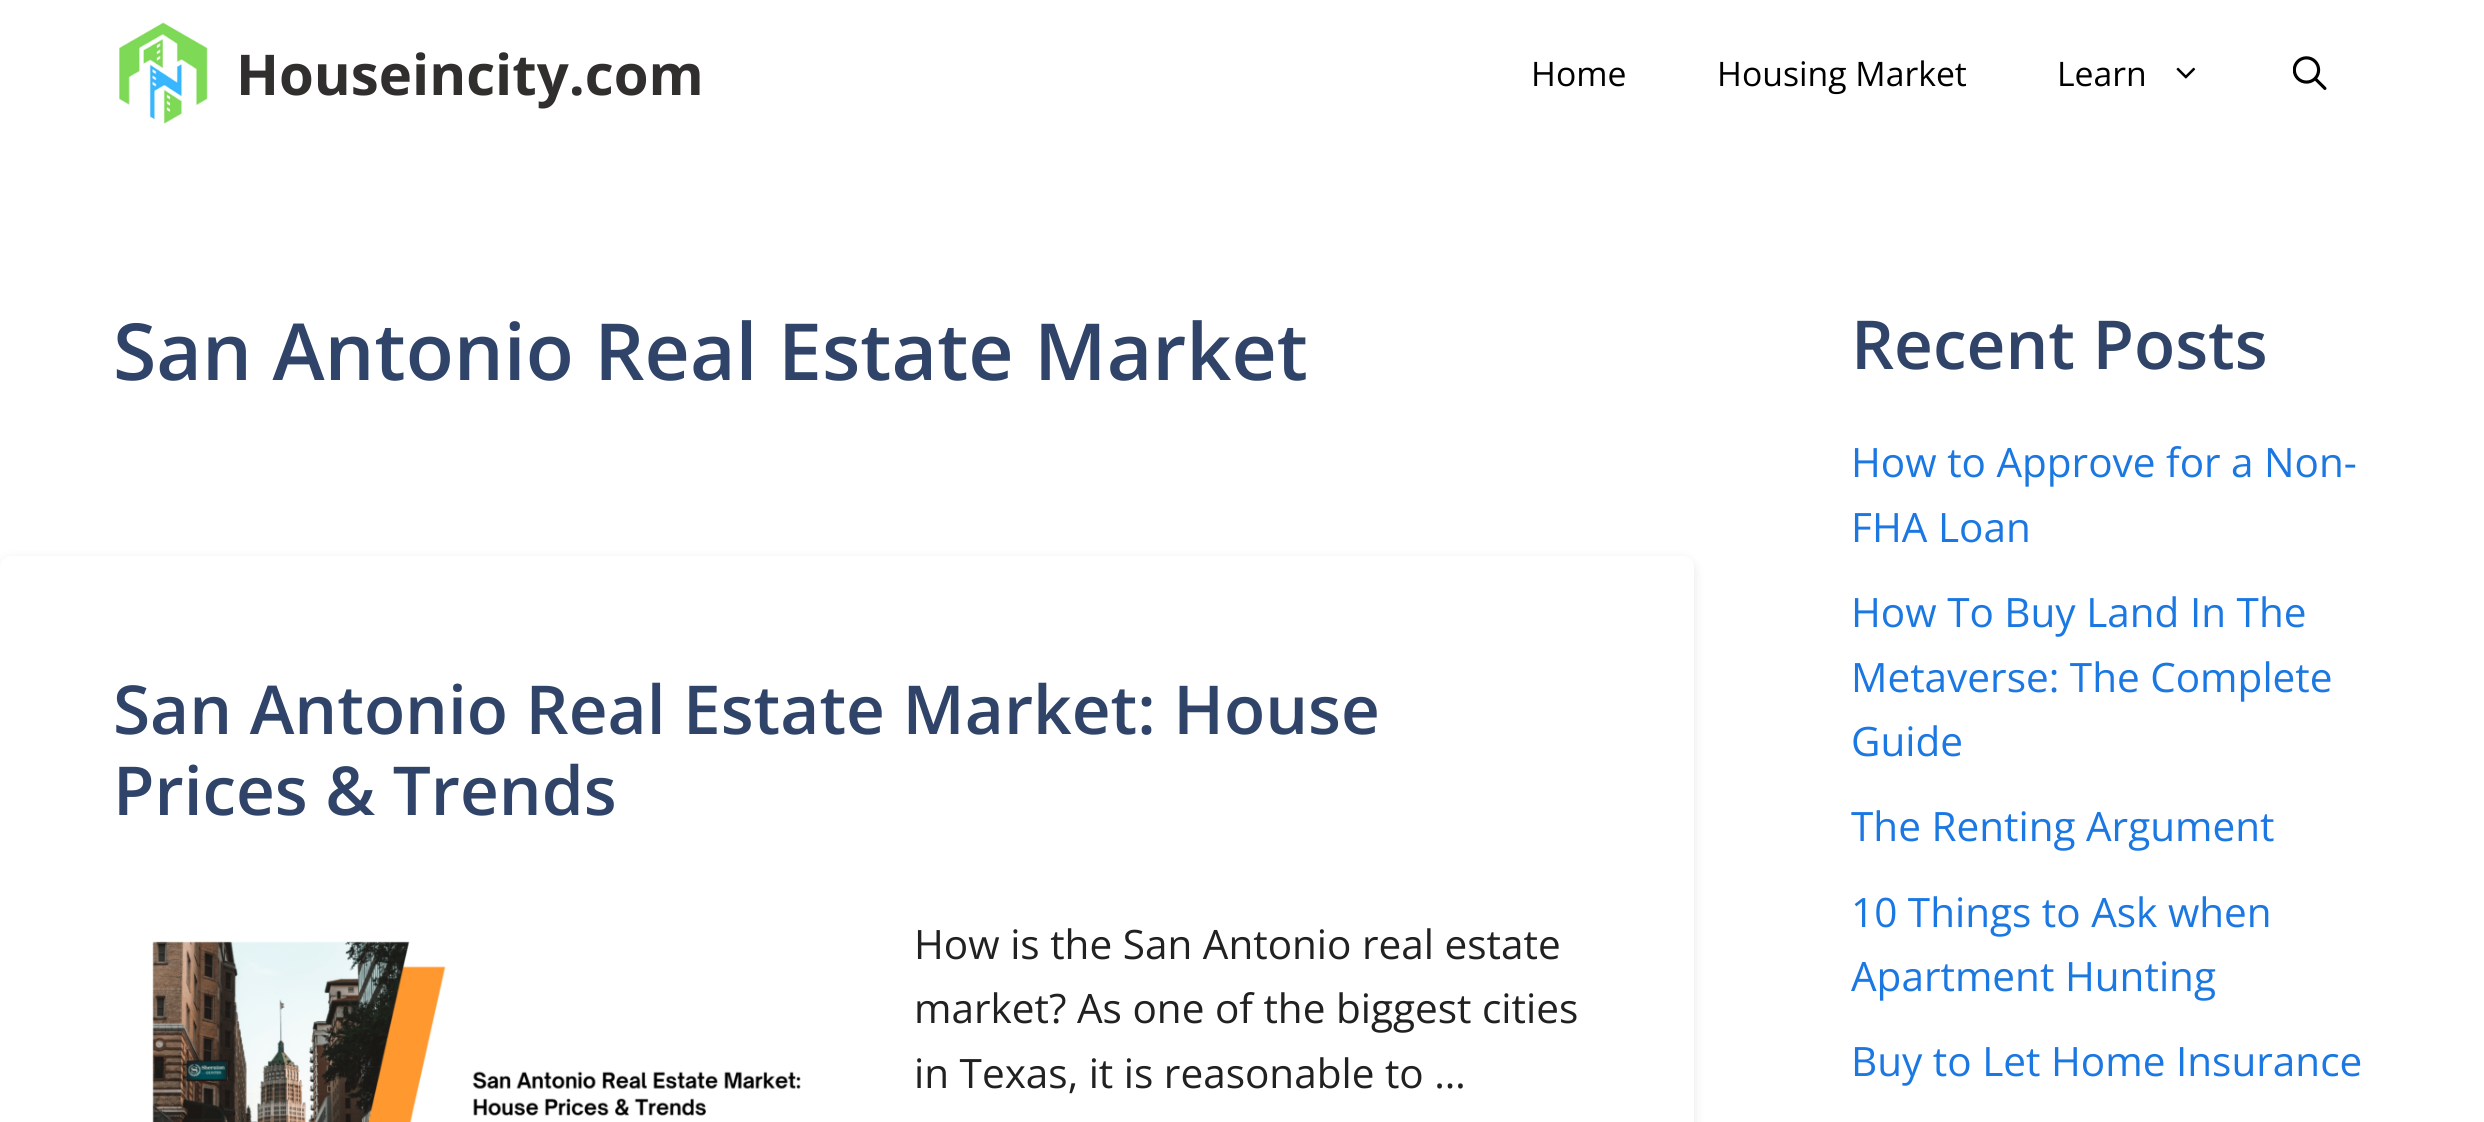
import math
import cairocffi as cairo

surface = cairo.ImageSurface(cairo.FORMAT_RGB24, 2484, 1122)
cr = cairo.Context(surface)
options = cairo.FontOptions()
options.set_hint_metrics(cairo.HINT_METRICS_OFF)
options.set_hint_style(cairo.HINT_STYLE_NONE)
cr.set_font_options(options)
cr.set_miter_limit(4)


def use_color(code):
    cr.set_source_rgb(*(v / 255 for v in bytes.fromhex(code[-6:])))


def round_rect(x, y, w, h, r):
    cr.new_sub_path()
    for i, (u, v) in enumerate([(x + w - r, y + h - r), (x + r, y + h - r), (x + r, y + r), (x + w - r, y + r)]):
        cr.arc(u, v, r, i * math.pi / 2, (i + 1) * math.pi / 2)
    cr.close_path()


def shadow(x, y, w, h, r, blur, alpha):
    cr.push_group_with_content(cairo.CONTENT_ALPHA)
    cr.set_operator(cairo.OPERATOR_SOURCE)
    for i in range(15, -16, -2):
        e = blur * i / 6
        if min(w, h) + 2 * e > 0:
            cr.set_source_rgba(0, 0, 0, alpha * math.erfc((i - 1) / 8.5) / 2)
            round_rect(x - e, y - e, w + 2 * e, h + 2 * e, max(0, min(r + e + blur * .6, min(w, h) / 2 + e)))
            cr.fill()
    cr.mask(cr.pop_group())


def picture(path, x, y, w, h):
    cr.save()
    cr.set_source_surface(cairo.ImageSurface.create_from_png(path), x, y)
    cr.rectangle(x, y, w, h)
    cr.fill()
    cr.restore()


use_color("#ffffff")
cr.paint()
picture("img1.png", 119, 22, 89, 102)
cr.select_font_face("Open Sans", cairo.FONT_SLANT_NORMAL, cairo.FONT_WEIGHT_BOLD)
cr.set_font_size(56.25)
use_color("#312e2e")
cr.move_to(236, 95)
cr.show_text("Houseincity.com")
cr.select_font_face("Open Sans")
cr.set_font_size(33.75)
use_color("#000000")
cr.move_to(1531, 86)
cr.show_text("Home")
cr.move_to(1717, 86)
cr.show_text("Housing Market")
cr.move_to(2057, 86)
cr.show_text("Learn")
picture("img2.png", 2176, 67, 20, 12)
picture("img3.png", 2293, 56, 34, 34)
cr.select_font_face("Open Sans SemiBold")
cr.set_font_size(78.75)
use_color("#2f4468")
cr.move_to(113, 380)
cr.show_text("San Antonio Real Estate Market")
use_color("#000000")
shadow(0, 560, 1694, 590, 11, 5.5, 0.1)
use_color("#ffffff")
round_rect(0, 556, 1694, 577, 11)
cr.fill()
cr.set_font_size(67.5)
use_color("#2f4468")
cr.move_to(113, 734)
cr.show_text("San Antonio Real Estate Market: House")
cr.move_to(113, 815)
cr.show_text("Prices & Trends")
picture("img4.png", 152, 941, 649, 181)
cr.select_font_face("Open Sans")
cr.set_font_size(40.5)
use_color("#212121")
cr.move_to(914, 959)
cr.show_text("How is the San Antonio real estate")
cr.move_to(914, 1023)
cr.show_text("market? As one of the biggest cities")
cr.move_to(914, 1088)
cr.show_text("in Texas, it is reasonable to …")
cr.select_font_face("Open Sans SemiBold")
cr.set_font_size(67.5)
use_color("#2f4468")
cr.move_to(1851, 369)
cr.show_text("Recent Posts")
cr.select_font_face("Open Sans")
cr.set_font_size(40.5)
use_color("#1b78e2")
cr.move_to(1851, 477)
cr.show_text("How to Approve for a Non-")
cr.move_to(1851, 542)
cr.show_text("FHA Loan")
cr.move_to(1851, 627)
cr.show_text("How To Buy Land In The")
cr.move_to(1851, 692)
cr.show_text("Metaverse: The Complete")
cr.move_to(1851, 756)
cr.show_text("Guide")
cr.move_to(1851, 841)
cr.show_text("The Renting Argument")
cr.move_to(1851, 927)
cr.show_text("10 Things to Ask when")
cr.move_to(1851, 991)
cr.show_text("Apartment Hunting")
cr.move_to(1851, 1076)
cr.show_text("Buy to Let Home Insurance")
surface.write_to_png("result.png")
